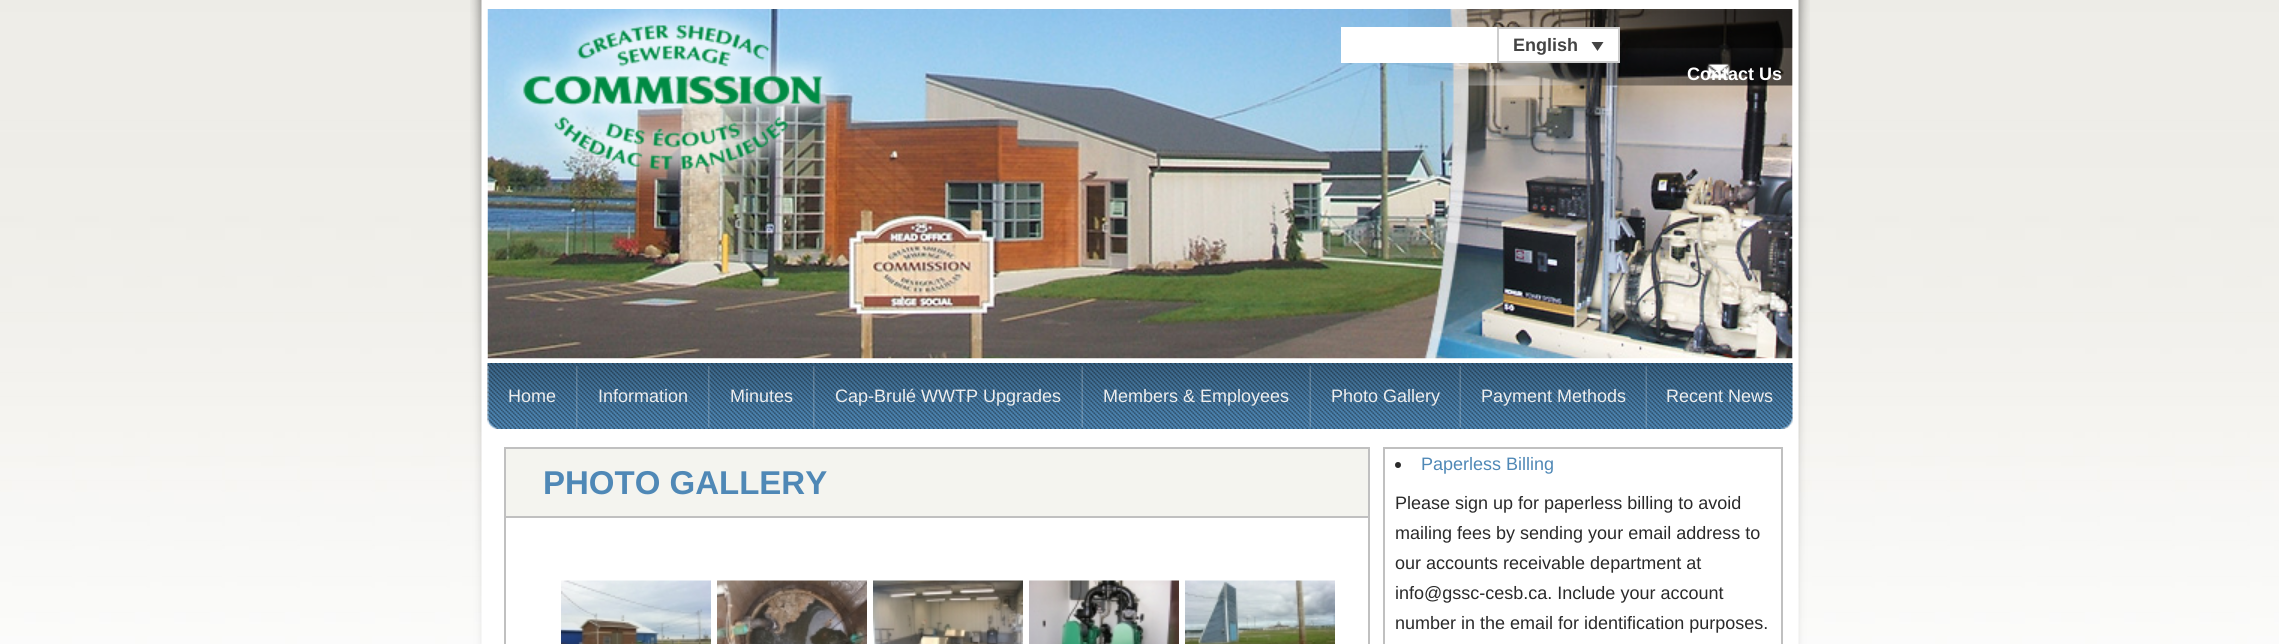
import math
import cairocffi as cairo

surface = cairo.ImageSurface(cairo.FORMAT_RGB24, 2279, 644)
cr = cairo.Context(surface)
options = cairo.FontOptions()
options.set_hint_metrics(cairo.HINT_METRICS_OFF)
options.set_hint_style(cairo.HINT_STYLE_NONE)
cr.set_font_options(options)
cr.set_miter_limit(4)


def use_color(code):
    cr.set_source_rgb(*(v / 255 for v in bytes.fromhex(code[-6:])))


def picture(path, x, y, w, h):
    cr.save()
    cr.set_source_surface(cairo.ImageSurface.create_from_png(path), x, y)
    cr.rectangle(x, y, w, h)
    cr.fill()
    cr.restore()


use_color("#ffffff")
cr.paint()
picture("img1.png", 0, 0, 2279, 644)
picture("img2.png", 470, 0, 1340, 644)
picture("img3.png", 487, 9, 1306, 350)
picture("img4.png", 504, 9, 339, 183)
picture("img5.png", 1408, 9, 385, 77)
use_color("#ffffff")
cr.rectangle(1341, 27, 277, 36)
cr.fill()
cr.rectangle(1498, 28, 121, 34)
use_color("#cdcdcd")
cr.stroke()
cr.select_font_face("Liberation Sans", cairo.FONT_SLANT_NORMAL, cairo.FONT_WEIGHT_BOLD)
cr.set_font_size(18)
use_color("#444444")
cr.move_to(1513, 51)
cr.show_text("English")
cr.new_path()
cr.move_to(1591.5, 42)
cr.line_to(1603.5, 42)
cr.line_to(1597.5, 51)
cr.close_path()
cr.fill()
picture("img6.png", 1425, 63, 305, 23)
use_color("#ffffff")
cr.move_to(1687, 80)
cr.show_text("Contact Us")
picture("img7.png", 487, 363, 1306, 66)
picture("img8.png", 487, 366, 2, 57)
cr.select_font_face("Liberation Sans")
use_color("#eeeeee")
cr.move_to(508, 402)
cr.show_text("Home")
picture("img9.png", 576, 366, 2, 62)
cr.move_to(598, 402)
cr.show_text("Information")
picture("img10.png", 708, 366, 2, 62)
cr.move_to(730, 402)
cr.show_text("Minutes")
picture("img11.png", 813, 366, 2, 62)
cr.move_to(835, 402)
cr.show_text("Cap-Brulé WWTP Upgrades")
picture("img12.png", 1081, 366, 2, 62)
cr.move_to(1103, 402)
cr.show_text("Members & Employees")
picture("img13.png", 1309, 366, 2, 62)
cr.move_to(1331, 402)
cr.show_text("Photo Gallery")
picture("img12.png", 1459, 366, 2, 62)
cr.move_to(1481, 402)
cr.show_text("Payment Methods")
picture("img14.png", 1645, 366, 2, 62)
cr.move_to(1666, 402)
cr.show_text("Recent News")
cr.rectangle(505, 448, 864, 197)
use_color("#c0c0c0")
cr.stroke()
use_color("#f4f4ef")
cr.rectangle(506, 449, 862, 67)
cr.fill()
use_color("#c0c0c0")
cr.rectangle(506, 516, 862, 2)
cr.fill()
cr.select_font_face("Liberation Sans", cairo.FONT_SLANT_NORMAL, cairo.FONT_WEIGHT_BOLD)
cr.set_font_size(33)
use_color("#4f88b6")
cr.move_to(543, 494)
cr.show_text("PHOTO GALLERY")
picture("img15.png", 561, 580, 150, 64)
picture("img16.png", 717, 580, 150, 64)
picture("img17.png", 873, 580, 150, 64)
picture("img18.png", 1029, 580, 150, 64)
picture("img19.png", 1185, 580, 150, 64)
use_color("#c0c0c0")
cr.rectangle(1781, 447, 2, 197)
cr.fill()
cr.rectangle(1383, 447, 2, 197)
cr.fill()
cr.rectangle(1385, 447, 396, 2)
cr.fill()
use_color("#2a2a2a")
cr.arc(1398, 465, 3, 0, 2 * math.pi)
cr.fill()
cr.select_font_face("Liberation Sans")
cr.set_font_size(18)
use_color("#4f88b6")
cr.move_to(1421, 470)
cr.show_text("Paperless Billing")
use_color("#2a2a2a")
cr.move_to(1395, 509)
cr.show_text("Please sign up for paperless billing to avoid")
cr.move_to(1395, 539)
cr.show_text("mailing fees by sending your email address to")
cr.move_to(1395, 569)
cr.show_text("our accounts receivable department at")
cr.move_to(1395, 599)
cr.show_text("info@gssc-cesb.ca. Include your account")
cr.move_to(1395, 629)
cr.show_text("number in the email for identification purposes.")
surface.write_to_png("result.png")
